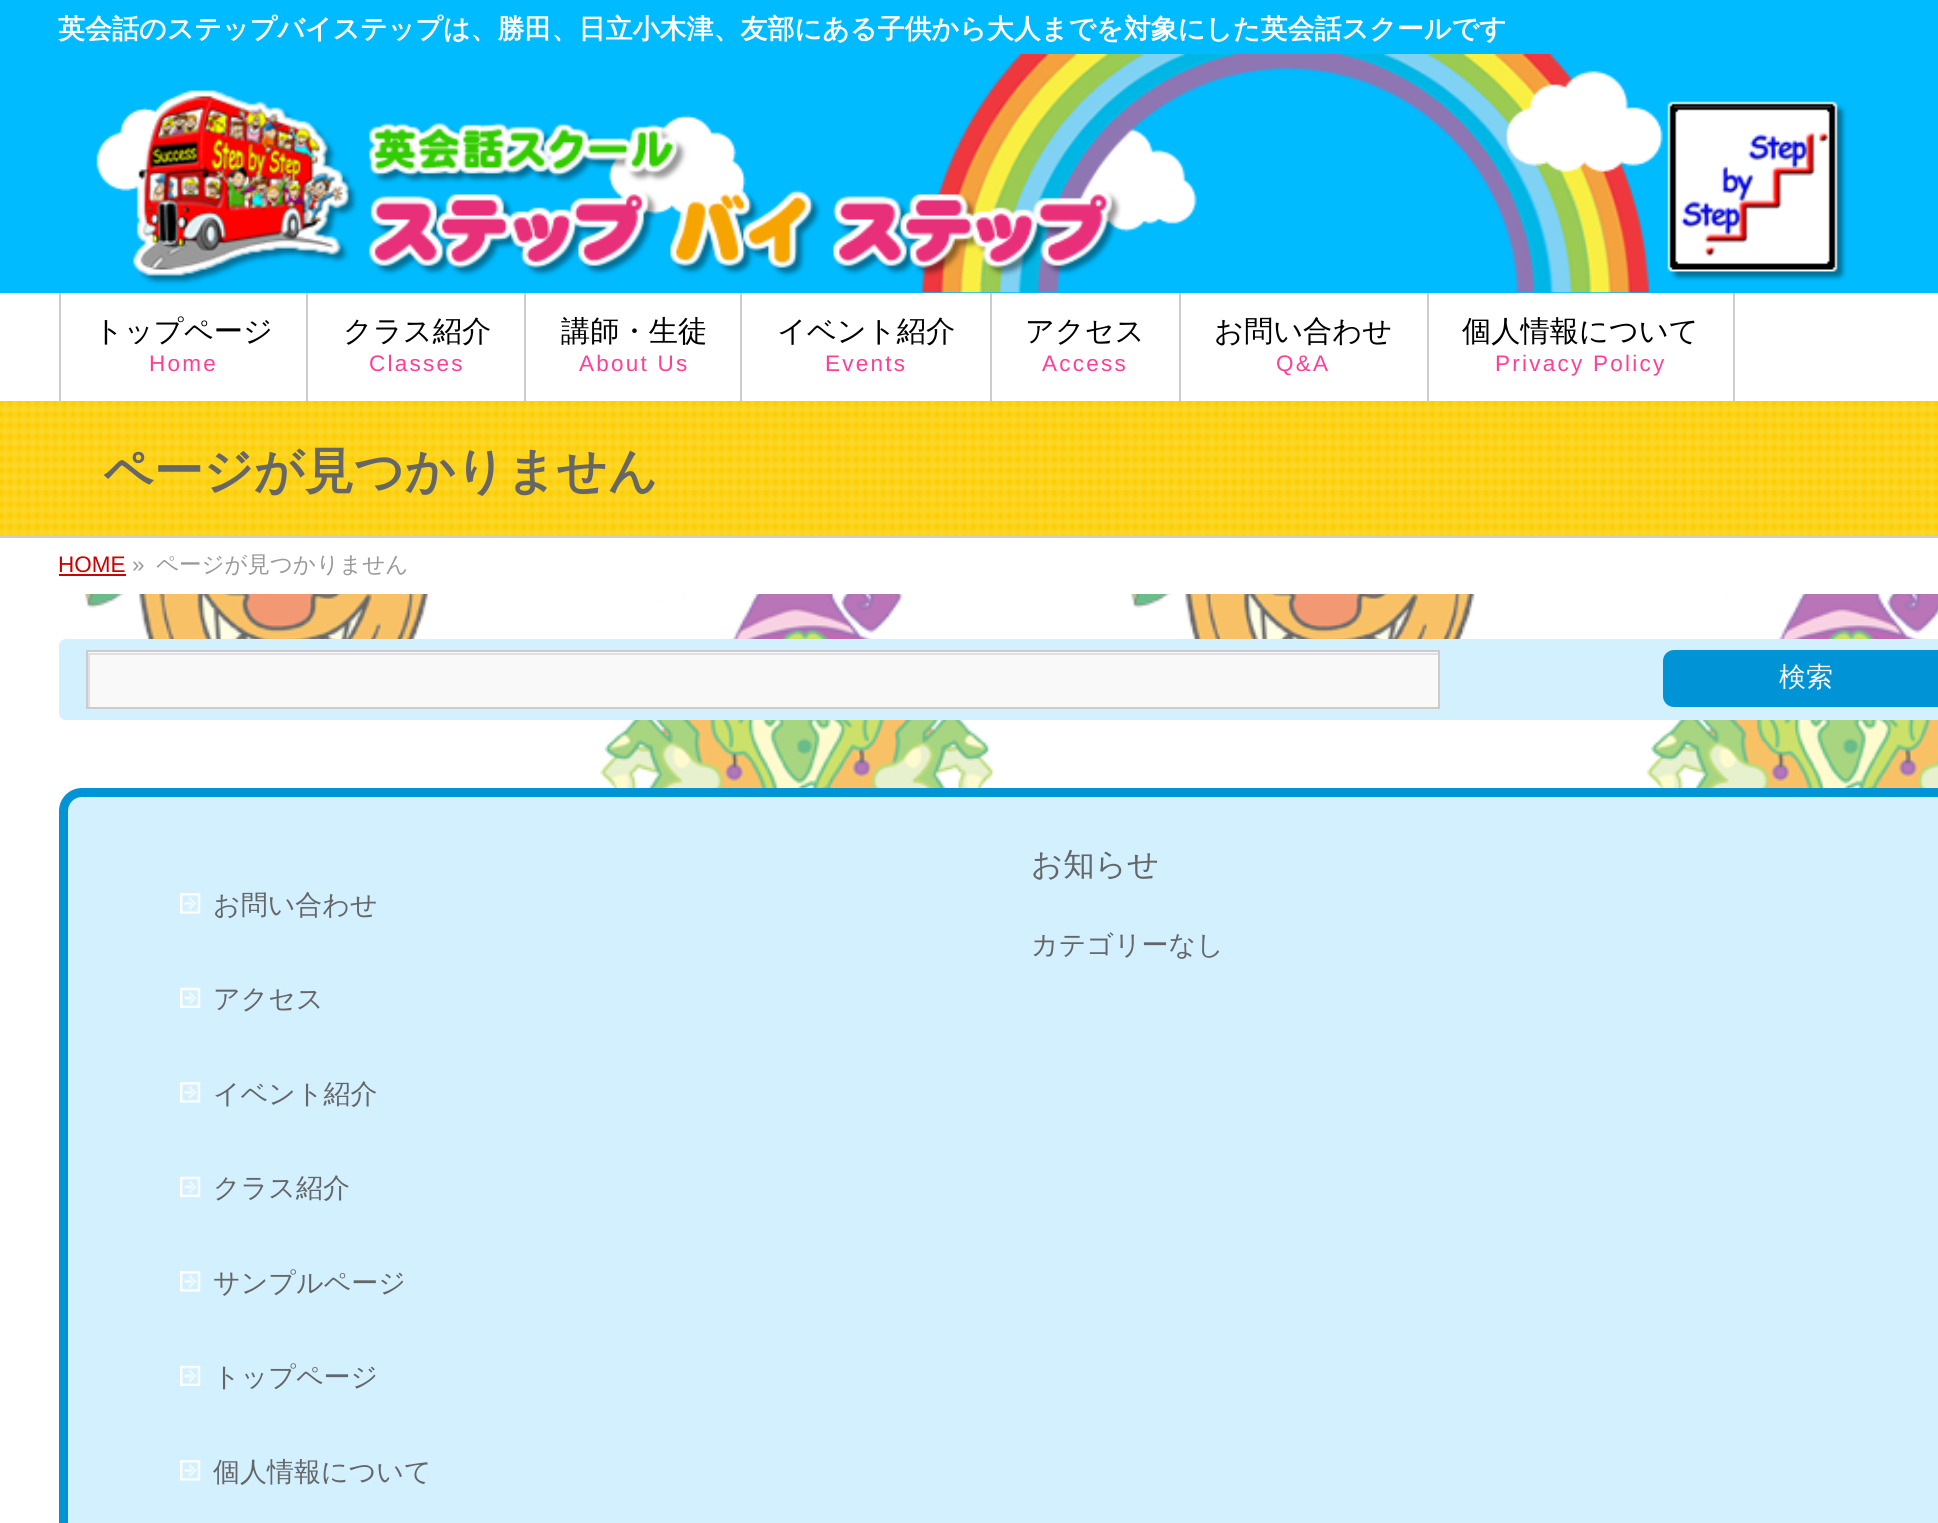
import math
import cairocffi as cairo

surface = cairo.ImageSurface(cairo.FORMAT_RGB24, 1938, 1523)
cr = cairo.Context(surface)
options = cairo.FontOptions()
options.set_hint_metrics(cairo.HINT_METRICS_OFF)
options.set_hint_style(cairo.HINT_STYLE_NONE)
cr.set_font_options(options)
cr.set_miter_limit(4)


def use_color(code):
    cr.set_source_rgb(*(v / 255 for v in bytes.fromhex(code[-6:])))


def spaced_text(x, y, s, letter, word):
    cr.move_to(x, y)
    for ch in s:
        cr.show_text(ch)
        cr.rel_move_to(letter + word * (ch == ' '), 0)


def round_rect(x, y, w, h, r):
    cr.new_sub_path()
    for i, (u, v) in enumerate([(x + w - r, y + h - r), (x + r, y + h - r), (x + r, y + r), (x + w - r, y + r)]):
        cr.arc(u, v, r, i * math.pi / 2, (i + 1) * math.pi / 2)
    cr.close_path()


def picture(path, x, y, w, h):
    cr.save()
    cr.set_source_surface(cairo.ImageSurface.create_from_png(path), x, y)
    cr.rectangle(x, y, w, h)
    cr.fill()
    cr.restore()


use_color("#ffffff")
cr.paint()
picture("img1.png", 85, 594, 1853, 194)
use_color("#00bbff")
cr.rectangle(0, 0, 1938, 293)
cr.fill()
cr.select_font_face("WenQuanYi Zen Hei", cairo.FONT_SLANT_NORMAL, cairo.FONT_WEIGHT_BOLD)
cr.set_font_size(27)
use_color("#ffffff")
cr.move_to(58, 38)
cr.show_text("英会話のステップバイステップは、勝田、日立小木津、友部にある子供から大人までを対象にした英会話スクールです")
picture("img2.png", 96, 54, 1751, 239)
use_color("#cccccc")
cr.rectangle(59, 293, 2, 108)
cr.fill()
cr.rectangle(306, 293, 2, 108)
cr.fill()
cr.select_font_face("WenQuanYi Zen Hei Medium")
cr.set_font_size(29.25)
use_color("#000000")
cr.move_to(94, 341)
cr.show_text("トップページ")
cr.select_font_face("Liberation Sans")
cr.set_font_size(22.5)
use_color("#ff3f95")
spaced_text(149, 371, "Home", 2.25, 0)
use_color("#cccccc")
cr.rectangle(524, 293, 2, 108)
cr.fill()
cr.select_font_face("WenQuanYi Zen Hei Medium")
cr.set_font_size(29.25)
use_color("#000000")
cr.move_to(343, 341)
cr.show_text("クラス紹介")
cr.select_font_face("Liberation Sans")
cr.set_font_size(22.5)
use_color("#ff3f95")
spaced_text(369, 371, "Classes", 2.25, 0)
use_color("#cccccc")
cr.rectangle(740, 293, 2, 108)
cr.fill()
cr.select_font_face("WenQuanYi Zen Hei Medium")
cr.set_font_size(29.25)
use_color("#000000")
cr.move_to(561, 341)
cr.show_text("講師・生徒")
cr.select_font_face("Liberation Sans")
cr.set_font_size(22.5)
use_color("#ff3f95")
spaced_text(579, 371, "About Us", 2.25, 0)
use_color("#cccccc")
cr.rectangle(990, 293, 2, 108)
cr.fill()
cr.select_font_face("WenQuanYi Zen Hei Medium")
cr.set_font_size(29.25)
use_color("#000000")
cr.move_to(777, 341)
cr.show_text("イベント紹介")
cr.select_font_face("Liberation Sans")
cr.set_font_size(22.5)
use_color("#ff3f95")
spaced_text(825, 371, "Events", 2.25, 0)
use_color("#cccccc")
cr.rectangle(1179, 293, 2, 108)
cr.fill()
cr.select_font_face("WenQuanYi Zen Hei Medium")
cr.set_font_size(29.25)
use_color("#000000")
cr.move_to(1025, 341)
cr.show_text("アクセス")
cr.select_font_face("Liberation Sans")
cr.set_font_size(22.5)
use_color("#ff3f95")
spaced_text(1042, 371, "Access", 2.25, 0)
use_color("#cccccc")
cr.rectangle(1427, 293, 2, 108)
cr.fill()
cr.select_font_face("WenQuanYi Zen Hei Medium")
cr.set_font_size(29.25)
use_color("#000000")
cr.move_to(1214, 341)
cr.show_text("お問い合わせ")
cr.select_font_face("Liberation Sans")
cr.set_font_size(22.5)
use_color("#ff3f95")
spaced_text(1276, 371, "Q&A", 2.25, 0)
use_color("#cccccc")
cr.rectangle(1733, 293, 2, 108)
cr.fill()
cr.select_font_face("WenQuanYi Zen Hei Medium")
cr.set_font_size(29.25)
use_color("#000000")
cr.move_to(1462, 341)
cr.show_text("個人情報について")
cr.select_font_face("Liberation Sans")
cr.set_font_size(22.5)
use_color("#ff3f95")
spaced_text(1495, 371, "Privacy Policy", 2.25, 0)
picture("img3.png", 0, 401, 1938, 135)
use_color("#cccccc")
cr.rectangle(0, 536, 1938, 2)
cr.fill()
cr.select_font_face("WenQuanYi Zen Hei", cairo.FONT_SLANT_NORMAL, cairo.FONT_WEIGHT_BOLD)
cr.set_font_size(49.5)
use_color("#666666")
cr.move_to(103, 488)
cr.show_text("ページが見つかりません")
cr.select_font_face("Liberation Sans")
cr.set_font_size(22.5)
use_color("#cc0000")
cr.move_to(58, 572)
cr.show_text("HOME")
cr.rectangle(59, 574, 67, 2)
cr.fill()
use_color("#999999")
cr.move_to(132, 572)
cr.show_text("»")
cr.select_font_face("WenQuanYi Zen Hei Medium")
cr.move_to(156, 572)
cr.show_text("ページが見つかりません")
use_color("#d2f0ff")
round_rect(59, 639, 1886, 81, 7)
cr.fill()
use_color("#f9f9f9")
cr.rectangle(88, 652, 1350, 55)
cr.fill()
cr.save()
cr.rectangle(88, 653, 1350, 54)
cr.clip()
use_color("#e0e0e0")
cr.set_fill_rule(cairo.FILL_RULE_EVEN_ODD)
cr.new_path()
cr.move_to(66, 639)
cr.line_to(1660, 639)
cr.line_to(1660, 720)
cr.line_to(66, 720)
cr.curve_to(62, 720, 59, 717, 59, 713)
cr.line_to(59, 646)
cr.curve_to(59, 642, 62, 639, 66, 639)
cr.close_path()
cr.move_to(90, 655)
cr.line_to(90, 709)
cr.line_to(1440, 709)
cr.line_to(1440, 655)
cr.close_path()
cr.fill()
cr.restore()
cr.rectangle(87, 651, 1352, 57)
use_color("#cccccc")
cr.stroke()
use_color("#0093d6")
round_rect(1663, 650, 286, 57, 11)
cr.fill()
cr.set_font_size(27)
use_color("#f5f5f5")
cr.move_to(1779, 686)
cr.show_text("検索")
use_color("#d2f0ff")
round_rect(63.5, 792.5, 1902, 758, 18.5)
cr.fill_preserve()
use_color("#0093d6")
cr.set_line_width(9)
cr.stroke()
picture("img4.png", 180, 893, 21, 21)
use_color("#666666")
cr.move_to(213, 914)
cr.show_text("お問い合わせ")
picture("img5.png", 180, 987, 21, 21)
cr.move_to(213, 1008)
cr.show_text("アクセス")
picture("img4.png", 180, 1082, 21, 21)
cr.move_to(213, 1103)
cr.show_text("イベント紹介")
picture("img5.png", 180, 1176, 21, 21)
cr.move_to(213, 1197)
cr.show_text("クラス紹介")
picture("img4.png", 180, 1271, 21, 21)
cr.move_to(213, 1292)
cr.show_text("サンプルページ")
picture("img5.png", 180, 1365, 21, 21)
cr.move_to(213, 1386)
cr.show_text("トップページ")
picture("img4.png", 180, 1460, 21, 21)
cr.move_to(213, 1481)
cr.show_text("個人情報について")
cr.set_font_size(31.5)
cr.move_to(1031, 875)
cr.show_text("お知らせ")
cr.set_font_size(27)
cr.move_to(1031, 954)
cr.show_text("カテゴリーなし")
surface.write_to_png("result.png")
